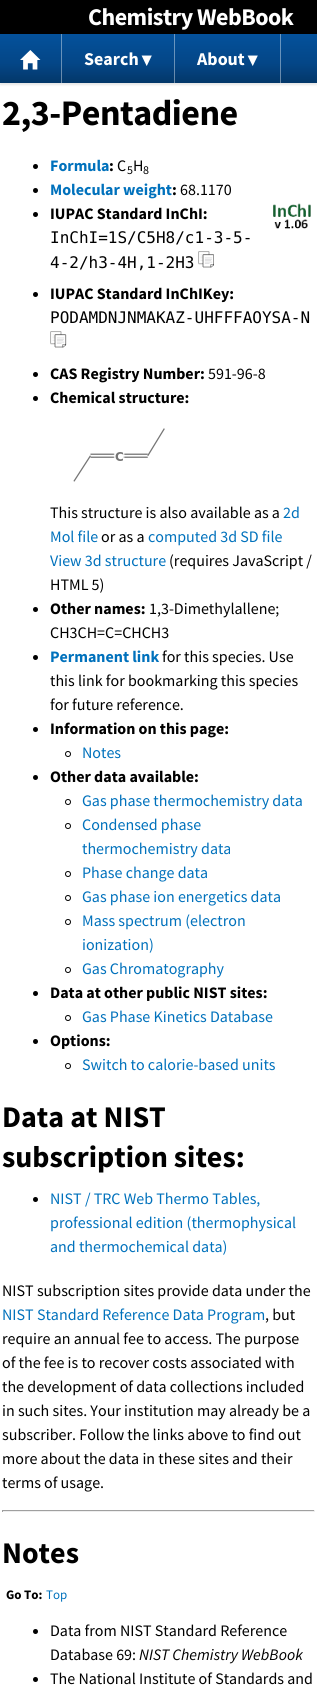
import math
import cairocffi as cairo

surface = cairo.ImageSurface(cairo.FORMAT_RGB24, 317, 1700)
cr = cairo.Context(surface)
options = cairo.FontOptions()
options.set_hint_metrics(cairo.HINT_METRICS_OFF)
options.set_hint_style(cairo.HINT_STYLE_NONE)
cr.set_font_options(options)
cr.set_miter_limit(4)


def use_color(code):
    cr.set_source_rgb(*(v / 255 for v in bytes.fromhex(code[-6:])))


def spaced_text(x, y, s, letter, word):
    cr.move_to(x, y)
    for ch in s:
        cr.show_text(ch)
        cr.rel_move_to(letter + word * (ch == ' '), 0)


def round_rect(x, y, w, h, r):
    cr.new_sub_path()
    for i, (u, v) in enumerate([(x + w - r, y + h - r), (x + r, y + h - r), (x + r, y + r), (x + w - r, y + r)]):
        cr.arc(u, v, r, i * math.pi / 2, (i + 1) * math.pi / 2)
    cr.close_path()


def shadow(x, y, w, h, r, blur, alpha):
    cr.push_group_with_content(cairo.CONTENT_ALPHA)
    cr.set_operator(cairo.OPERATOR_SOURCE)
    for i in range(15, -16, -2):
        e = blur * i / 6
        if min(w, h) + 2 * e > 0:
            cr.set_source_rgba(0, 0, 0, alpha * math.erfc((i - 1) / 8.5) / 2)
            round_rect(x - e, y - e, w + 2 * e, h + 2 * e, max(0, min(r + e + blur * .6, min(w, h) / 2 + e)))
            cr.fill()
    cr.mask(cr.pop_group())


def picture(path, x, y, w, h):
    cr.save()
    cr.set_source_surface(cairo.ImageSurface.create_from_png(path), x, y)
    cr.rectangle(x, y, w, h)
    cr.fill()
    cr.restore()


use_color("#ffffff")
cr.paint()
use_color("#000000")
shadow(0, 36, 317, 49, 0, 1, 0.1)
use_color("#000000")
cr.rectangle(0, 0, 317, 34)
cr.fill()
cr.select_font_face("Source Sans Pro", cairo.FONT_SLANT_NORMAL, cairo.FONT_WEIGHT_BOLD)
cr.set_font_size(24)
use_color("#ffffff")
spaced_text(88, 25, "Chemistry WebBook", -0.5, 0)
gradient = cairo.LinearGradient(159, 34, 159, 83)
gradient.add_color_stop_rgba(0, 0.016, 0.318, 0.608, 1)
gradient.add_color_stop_rgba(0.6, 0.016, 0.275, 0.529, 1)
gradient.add_color_stop_rgba(1, 0.012, 0.216, 0.412, 1)
cr.set_source(gradient)
cr.rectangle(0, 34, 317, 49)
cr.fill()
gradient = cairo.LinearGradient(159, 34, 159, 83)
gradient.add_color_stop_rgba(0, 0.408, 0.592, 0.765, 1)
gradient.add_color_stop_rgba(0.6, 0.408, 0.565, 0.718, 1)
gradient.add_color_stop_rgba(1, 0.408, 0.529, 0.647, 1)
cr.set_source(gradient)
cr.rectangle(280, 34, 1, 49)
cr.fill()
cr.rectangle(174, 34, 1, 49)
cr.fill()
cr.rectangle(61, 34, 1, 49)
cr.fill()
picture("img1.png", 20, 50, 21, 20)
cr.set_font_size(18)
use_color("#ffffff")
cr.move_to(84, 65)
cr.show_text("Search")
cr.set_font_size(13)
cr.move_to(141, 65)
cr.show_text("▼")
cr.set_font_size(18)
cr.move_to(197, 65)
cr.show_text("About")
cr.set_font_size(13)
cr.move_to(247, 65)
cr.show_text("▼")
cr.set_font_size(36)
use_color("#000000")
spaced_text(2, 125, "2,3-Pentadiene", -0.5, 0)
cr.new_path()
cr.arc(35.5, 166.5, 2.5, 0, 2 * math.pi)
cr.fill()
cr.set_font_size(16)
use_color("#0071bc")
cr.move_to(50, 171)
cr.show_text("Formula")
use_color("#000000")
cr.move_to(109, 171)
cr.show_text(":")
cr.select_font_face("Source Sans Pro")
cr.move_to(117, 171)
cr.show_text("C")
cr.set_font_size(12)
cr.move_to(127, 174)
cr.show_text("5")
cr.set_font_size(16)
cr.move_to(133, 171)
cr.show_text("H")
cr.set_font_size(12)
cr.move_to(143, 174)
cr.show_text("8")
cr.new_path()
cr.arc(35.5, 190.5, 2.5, 0, 2 * math.pi)
cr.fill()
cr.select_font_face("Source Sans Pro", cairo.FONT_SLANT_NORMAL, cairo.FONT_WEIGHT_BOLD)
cr.set_font_size(16)
use_color("#0071bc")
cr.move_to(50, 195)
cr.show_text("Molecular weight")
use_color("#000000")
cr.move_to(172, 195)
cr.show_text(":")
cr.select_font_face("Source Sans Pro")
cr.move_to(180, 195)
cr.show_text("68.1170")
cr.new_path()
cr.arc(35.5, 214.5, 2.5, 0, 2 * math.pi)
cr.fill()
cr.select_font_face("Source Sans Pro", cairo.FONT_SLANT_NORMAL, cairo.FONT_WEIGHT_BOLD)
cr.move_to(50, 219)
cr.show_text("IUPAC Standard InChI:")
cr.select_font_face("DejaVu Sans Mono")
cr.move_to(50, 243)
cr.show_text("InChI=1S/C5H8/c1-3-5-")
cr.move_to(50, 268)
cr.show_text("4-2/h3-4H,1-2H3")
picture("img2.png", 198, 251, 16, 17)
picture("img3.png", 273, 203, 38, 26)
cr.arc(35.5, 294.5, 2.5, 0, 2 * math.pi)
cr.fill()
cr.select_font_face("Source Sans Pro", cairo.FONT_SLANT_NORMAL, cairo.FONT_WEIGHT_BOLD)
cr.move_to(50, 299)
cr.show_text("IUPAC Standard InChIKey:")
cr.select_font_face("DejaVu Sans Mono")
cr.move_to(50, 323)
cr.show_text("PODAMDNJNMAKAZ-UHFFFAOYSA-N")
picture("img4.png", 50, 331, 17, 17)
cr.arc(35.5, 374.5, 2.5, 0, 2 * math.pi)
cr.fill()
cr.select_font_face("Source Sans Pro", cairo.FONT_SLANT_NORMAL, cairo.FONT_WEIGHT_BOLD)
cr.move_to(50, 379)
cr.show_text("CAS Registry Number:")
cr.select_font_face("Source Sans Pro")
cr.move_to(208, 379)
cr.show_text("591-96-8")
cr.new_path()
cr.arc(35.5, 398.5, 2.5, 0, 2 * math.pi)
cr.fill()
cr.select_font_face("Source Sans Pro", cairo.FONT_SLANT_NORMAL, cairo.FONT_WEIGHT_BOLD)
cr.move_to(50, 403)
cr.show_text("Chemical structure:")
picture("img5.png", 73, 428, 92, 54)
cr.select_font_face("Source Sans Pro")
cr.move_to(50, 518)
cr.show_text("This structure is also available as a")
use_color("#0071bc")
cr.move_to(283, 518)
cr.show_text("2d")
cr.move_to(50, 542)
cr.show_text("Mol file")
use_color("#000000")
cr.move_to(101, 542)
cr.show_text("or as a")
use_color("#0071bc")
cr.move_to(148, 542)
cr.show_text("computed 3d SD file")
cr.move_to(50, 566)
cr.show_text("View 3d structure")
use_color("#000000")
cr.move_to(169, 566)
cr.show_text("(requires JavaScript /")
cr.move_to(50, 590)
cr.show_text("HTML 5)")
cr.new_path()
cr.arc(35.5, 609.5, 2.5, 0, 2 * math.pi)
cr.fill()
cr.select_font_face("Source Sans Pro", cairo.FONT_SLANT_NORMAL, cairo.FONT_WEIGHT_BOLD)
cr.move_to(50, 614)
cr.show_text("Other names:")
cr.select_font_face("Source Sans Pro")
cr.move_to(149, 614)
cr.show_text("1,3-Dimethylallene;")
cr.move_to(50, 638)
cr.show_text("CH3CH=C=CHCH3")
cr.new_path()
cr.arc(35.5, 657.5, 2.5, 0, 2 * math.pi)
cr.fill()
cr.select_font_face("Source Sans Pro", cairo.FONT_SLANT_NORMAL, cairo.FONT_WEIGHT_BOLD)
use_color("#0071bc")
cr.move_to(50, 662)
cr.show_text("Permanent link")
cr.select_font_face("Source Sans Pro")
use_color("#000000")
cr.move_to(162, 662)
cr.show_text("for this species. Use")
cr.move_to(50, 686)
cr.show_text("this link for bookmarking this species")
cr.move_to(50, 710)
cr.show_text("for future reference.")
cr.new_path()
cr.arc(35.5, 729.5, 2.5, 0, 2 * math.pi)
cr.fill()
cr.select_font_face("Source Sans Pro", cairo.FONT_SLANT_NORMAL, cairo.FONT_WEIGHT_BOLD)
cr.move_to(50, 734)
cr.show_text("Information on this page:")
cr.new_path()
cr.arc(68, 754, 2.5, 0, 2 * math.pi)
cr.set_line_width(1)
cr.stroke()
cr.select_font_face("Source Sans Pro")
use_color("#0071bc")
cr.move_to(82, 758)
cr.show_text("Notes")
use_color("#000000")
cr.new_path()
cr.arc(35.5, 777.5, 2.5, 0, 2 * math.pi)
cr.fill()
cr.select_font_face("Source Sans Pro", cairo.FONT_SLANT_NORMAL, cairo.FONT_WEIGHT_BOLD)
cr.move_to(50, 782)
cr.show_text("Other data available:")
cr.new_path()
cr.arc(68, 802, 2.5, 0, 2 * math.pi)
cr.stroke()
cr.select_font_face("Source Sans Pro")
use_color("#0071bc")
cr.move_to(82, 806)
cr.show_text("Gas phase thermochemistry data")
cr.new_path()
cr.arc(68, 826, 2.5, 0, 2 * math.pi)
use_color("#000000")
cr.stroke()
use_color("#0071bc")
cr.move_to(82, 830)
cr.show_text("Condensed phase")
cr.move_to(82, 854)
cr.show_text("thermochemistry data")
cr.new_path()
cr.arc(68, 874, 2.5, 0, 2 * math.pi)
use_color("#000000")
cr.stroke()
use_color("#0071bc")
cr.move_to(82, 878)
cr.show_text("Phase change data")
cr.new_path()
cr.arc(68, 898, 2.5, 0, 2 * math.pi)
use_color("#000000")
cr.stroke()
use_color("#0071bc")
cr.move_to(82, 902)
cr.show_text("Gas phase ion energetics data")
cr.new_path()
cr.arc(68, 922, 2.5, 0, 2 * math.pi)
use_color("#000000")
cr.stroke()
use_color("#0071bc")
cr.move_to(82, 926)
cr.show_text("Mass spectrum (electron")
cr.move_to(82, 950)
cr.show_text("ionization)")
cr.new_path()
cr.arc(68, 970, 2.5, 0, 2 * math.pi)
use_color("#000000")
cr.stroke()
use_color("#0071bc")
cr.move_to(82, 974)
cr.show_text("Gas Chromatography")
use_color("#000000")
cr.new_path()
cr.arc(35.5, 993.5, 2.5, 0, 2 * math.pi)
cr.fill()
cr.select_font_face("Source Sans Pro", cairo.FONT_SLANT_NORMAL, cairo.FONT_WEIGHT_BOLD)
cr.move_to(50, 998)
cr.show_text("Data at other public NIST sites:")
cr.new_path()
cr.arc(68, 1018, 2.5, 0, 2 * math.pi)
cr.stroke()
cr.select_font_face("Source Sans Pro")
use_color("#0071bc")
cr.move_to(82, 1022)
cr.show_text("Gas Phase Kinetics Database")
use_color("#000000")
cr.new_path()
cr.arc(35.5, 1041.5, 2.5, 0, 2 * math.pi)
cr.fill()
cr.select_font_face("Source Sans Pro", cairo.FONT_SLANT_NORMAL, cairo.FONT_WEIGHT_BOLD)
cr.move_to(50, 1046)
cr.show_text("Options:")
cr.new_path()
cr.arc(68, 1066, 2.5, 0, 2 * math.pi)
cr.stroke()
cr.select_font_face("Source Sans Pro")
use_color("#0071bc")
cr.move_to(82, 1070)
cr.show_text("Switch to calorie-based units")
cr.select_font_face("Source Sans Pro", cairo.FONT_SLANT_NORMAL, cairo.FONT_WEIGHT_BOLD)
cr.set_font_size(30)
use_color("#000000")
cr.move_to(2, 1127)
cr.show_text("Data at NIST")
cr.move_to(2, 1167)
cr.show_text("subscription sites:")
cr.new_path()
cr.arc(35.5, 1199.5, 2.5, 0, 2 * math.pi)
cr.fill()
cr.select_font_face("Source Sans Pro")
cr.set_font_size(16)
use_color("#0071bc")
cr.move_to(50, 1204)
cr.show_text("NIST / TRC Web Thermo Tables,")
cr.move_to(50, 1228)
cr.show_text("professional edition (thermophysical")
cr.move_to(50, 1252)
cr.show_text("and thermochemical data)")
use_color("#000000")
cr.move_to(2, 1296)
cr.show_text("NIST subscription sites provide data under the")
use_color("#0071bc")
cr.move_to(2, 1320)
cr.show_text("NIST Standard Reference Data Program")
use_color("#000000")
cr.move_to(265, 1320)
cr.show_text(", but")
cr.move_to(2, 1344)
cr.show_text("require an annual fee to access. The purpose")
cr.move_to(2, 1368)
cr.show_text("of the fee is to recover costs associated with")
cr.move_to(2, 1392)
cr.show_text("the development of data collections included")
cr.move_to(2, 1416)
cr.show_text("in such sites. Your institution may already be a")
cr.move_to(2, 1440)
cr.show_text("subscriber. Follow the links above to find out")
cr.move_to(2, 1464)
cr.show_text("more about the data in these sites and their")
cr.move_to(2, 1488)
cr.show_text("terms of usage.")
use_color("#9f9f9f")
cr.rectangle(2, 1510, 313, 1)
cr.fill()
use_color("#eeeeee")
cr.rectangle(314, 1510, 1, 2)
cr.fill()
cr.rectangle(2, 1511, 313, 1)
cr.fill()
use_color("#9f9f9f")
cr.rectangle(2, 1510, 1, 2)
cr.fill()
cr.select_font_face("Source Sans Pro", cairo.FONT_SLANT_NORMAL, cairo.FONT_WEIGHT_BOLD)
cr.set_font_size(30)
use_color("#000000")
cr.move_to(2, 1563)
cr.show_text("Notes")
cr.set_font_size(13)
cr.move_to(6, 1599)
cr.show_text("Go To:")
cr.select_font_face("Source Sans Pro")
use_color("#0071bc")
cr.move_to(46, 1599)
cr.show_text("Top")
use_color("#000000")
cr.new_path()
cr.arc(35.5, 1631.5, 2.5, 0, 2 * math.pi)
cr.fill()
cr.set_font_size(16)
cr.move_to(50, 1636)
cr.show_text("Data from NIST Standard Reference")
cr.move_to(50, 1660)
cr.show_text("Database 69:")
cr.select_font_face("Source Sans Pro", cairo.FONT_SLANT_ITALIC)
cr.move_to(139, 1660)
cr.show_text("NIST Chemistry WebBook")
cr.new_path()
cr.arc(35.5, 1679.5, 2.5, 0, 2 * math.pi)
cr.fill()
cr.select_font_face("Source Sans Pro")
cr.move_to(50, 1684)
cr.show_text("The National Institute of Standards and")
surface.write_to_png("result.png")
